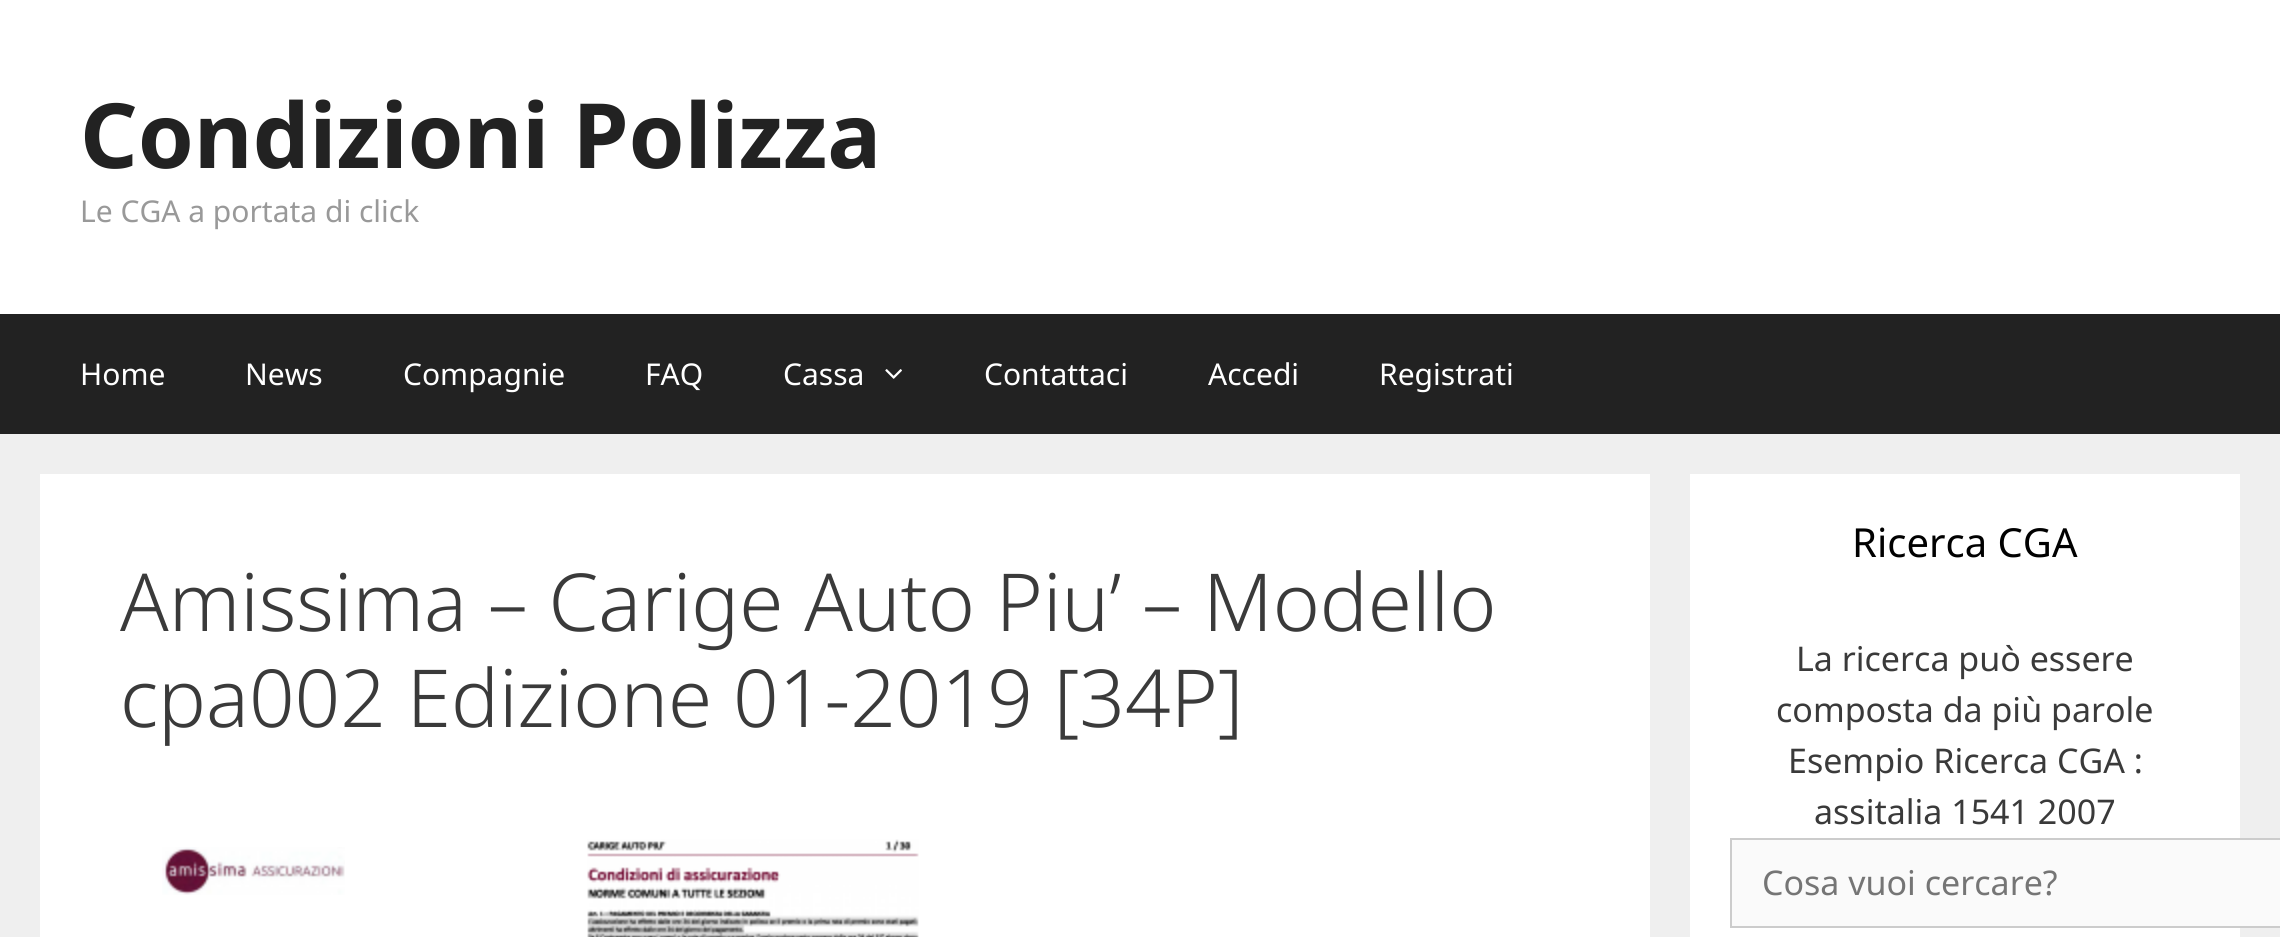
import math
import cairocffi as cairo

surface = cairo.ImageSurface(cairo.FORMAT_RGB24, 2280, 937)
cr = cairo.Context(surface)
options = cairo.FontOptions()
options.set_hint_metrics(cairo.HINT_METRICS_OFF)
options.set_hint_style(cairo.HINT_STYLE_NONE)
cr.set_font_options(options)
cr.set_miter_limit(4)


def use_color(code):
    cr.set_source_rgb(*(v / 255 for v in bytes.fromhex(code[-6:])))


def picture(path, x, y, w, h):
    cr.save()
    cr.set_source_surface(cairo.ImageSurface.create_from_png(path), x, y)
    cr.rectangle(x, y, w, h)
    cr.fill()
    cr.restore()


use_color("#efefef")
cr.paint()
use_color("#ffffff")
cr.rectangle(0, 0, 2280, 314)
cr.fill()
cr.select_font_face("Noto Sans", cairo.FONT_SLANT_NORMAL, cairo.FONT_WEIGHT_BOLD)
cr.set_font_size(90)
use_color("#222222")
cr.move_to(80, 168)
cr.show_text("Condizioni Polizza")
cr.select_font_face("Noto Sans")
cr.set_font_size(30)
use_color("#999999")
cr.move_to(80, 222)
cr.show_text("Le CGA a portata di click")
use_color("#222222")
cr.rectangle(0, 314, 2280, 120)
cr.fill()
use_color("#ffffff")
cr.move_to(80, 385)
cr.show_text("Home")
cr.move_to(245, 385)
cr.show_text("News")
cr.move_to(403, 385)
cr.show_text("Compagnie")
cr.move_to(645, 385)
cr.show_text("FAQ")
cr.move_to(783, 385)
cr.show_text("Cassa")
picture("img1.png", 885, 369, 17, 10)
cr.move_to(984, 385)
cr.show_text("Contattaci")
cr.move_to(1208, 385)
cr.show_text("Accedi")
cr.move_to(1379, 385)
cr.show_text("Registrati")
cr.rectangle(40, 474, 1610, 463)
cr.fill()
cr.select_font_face("Noto Sans Light")
cr.set_font_size(80)
use_color("#3a3a3a")
cr.move_to(120, 631)
cr.show_text("Amissima – Carige Auto Piu’ – Modello")
cr.move_to(120, 727)
cr.show_text("cpa002 Edizione 01-2019 [34P]")
picture("img2.png", 162, 847, 183, 48)
picture("img3.png", 587, 839, 332, 98)
use_color("#ffffff")
cr.rectangle(1690, 474, 550, 463)
cr.fill()
cr.select_font_face("Noto Sans")
cr.set_font_size(40)
use_color("#000000")
cr.move_to(1852, 557)
cr.show_text("Ricerca CGA")
cr.set_font_size(34)
use_color("#3a3a3a")
cr.move_to(1796, 671)
cr.show_text("La ricerca può essere")
cr.move_to(1776, 722)
cr.show_text("composta da più parole")
cr.move_to(1788, 773)
cr.show_text("Esempio Ricerca CGA :")
cr.move_to(1814, 824)
cr.show_text("assitalia 1541 2007")
use_color("#fafafa")
cr.rectangle(1731, 839, 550, 88)
cr.fill_preserve()
use_color("#cccccc")
cr.stroke()
use_color("#757575")
cr.move_to(1762, 895)
cr.show_text("Cosa vuoi cercare?")
surface.write_to_png("result.png")
